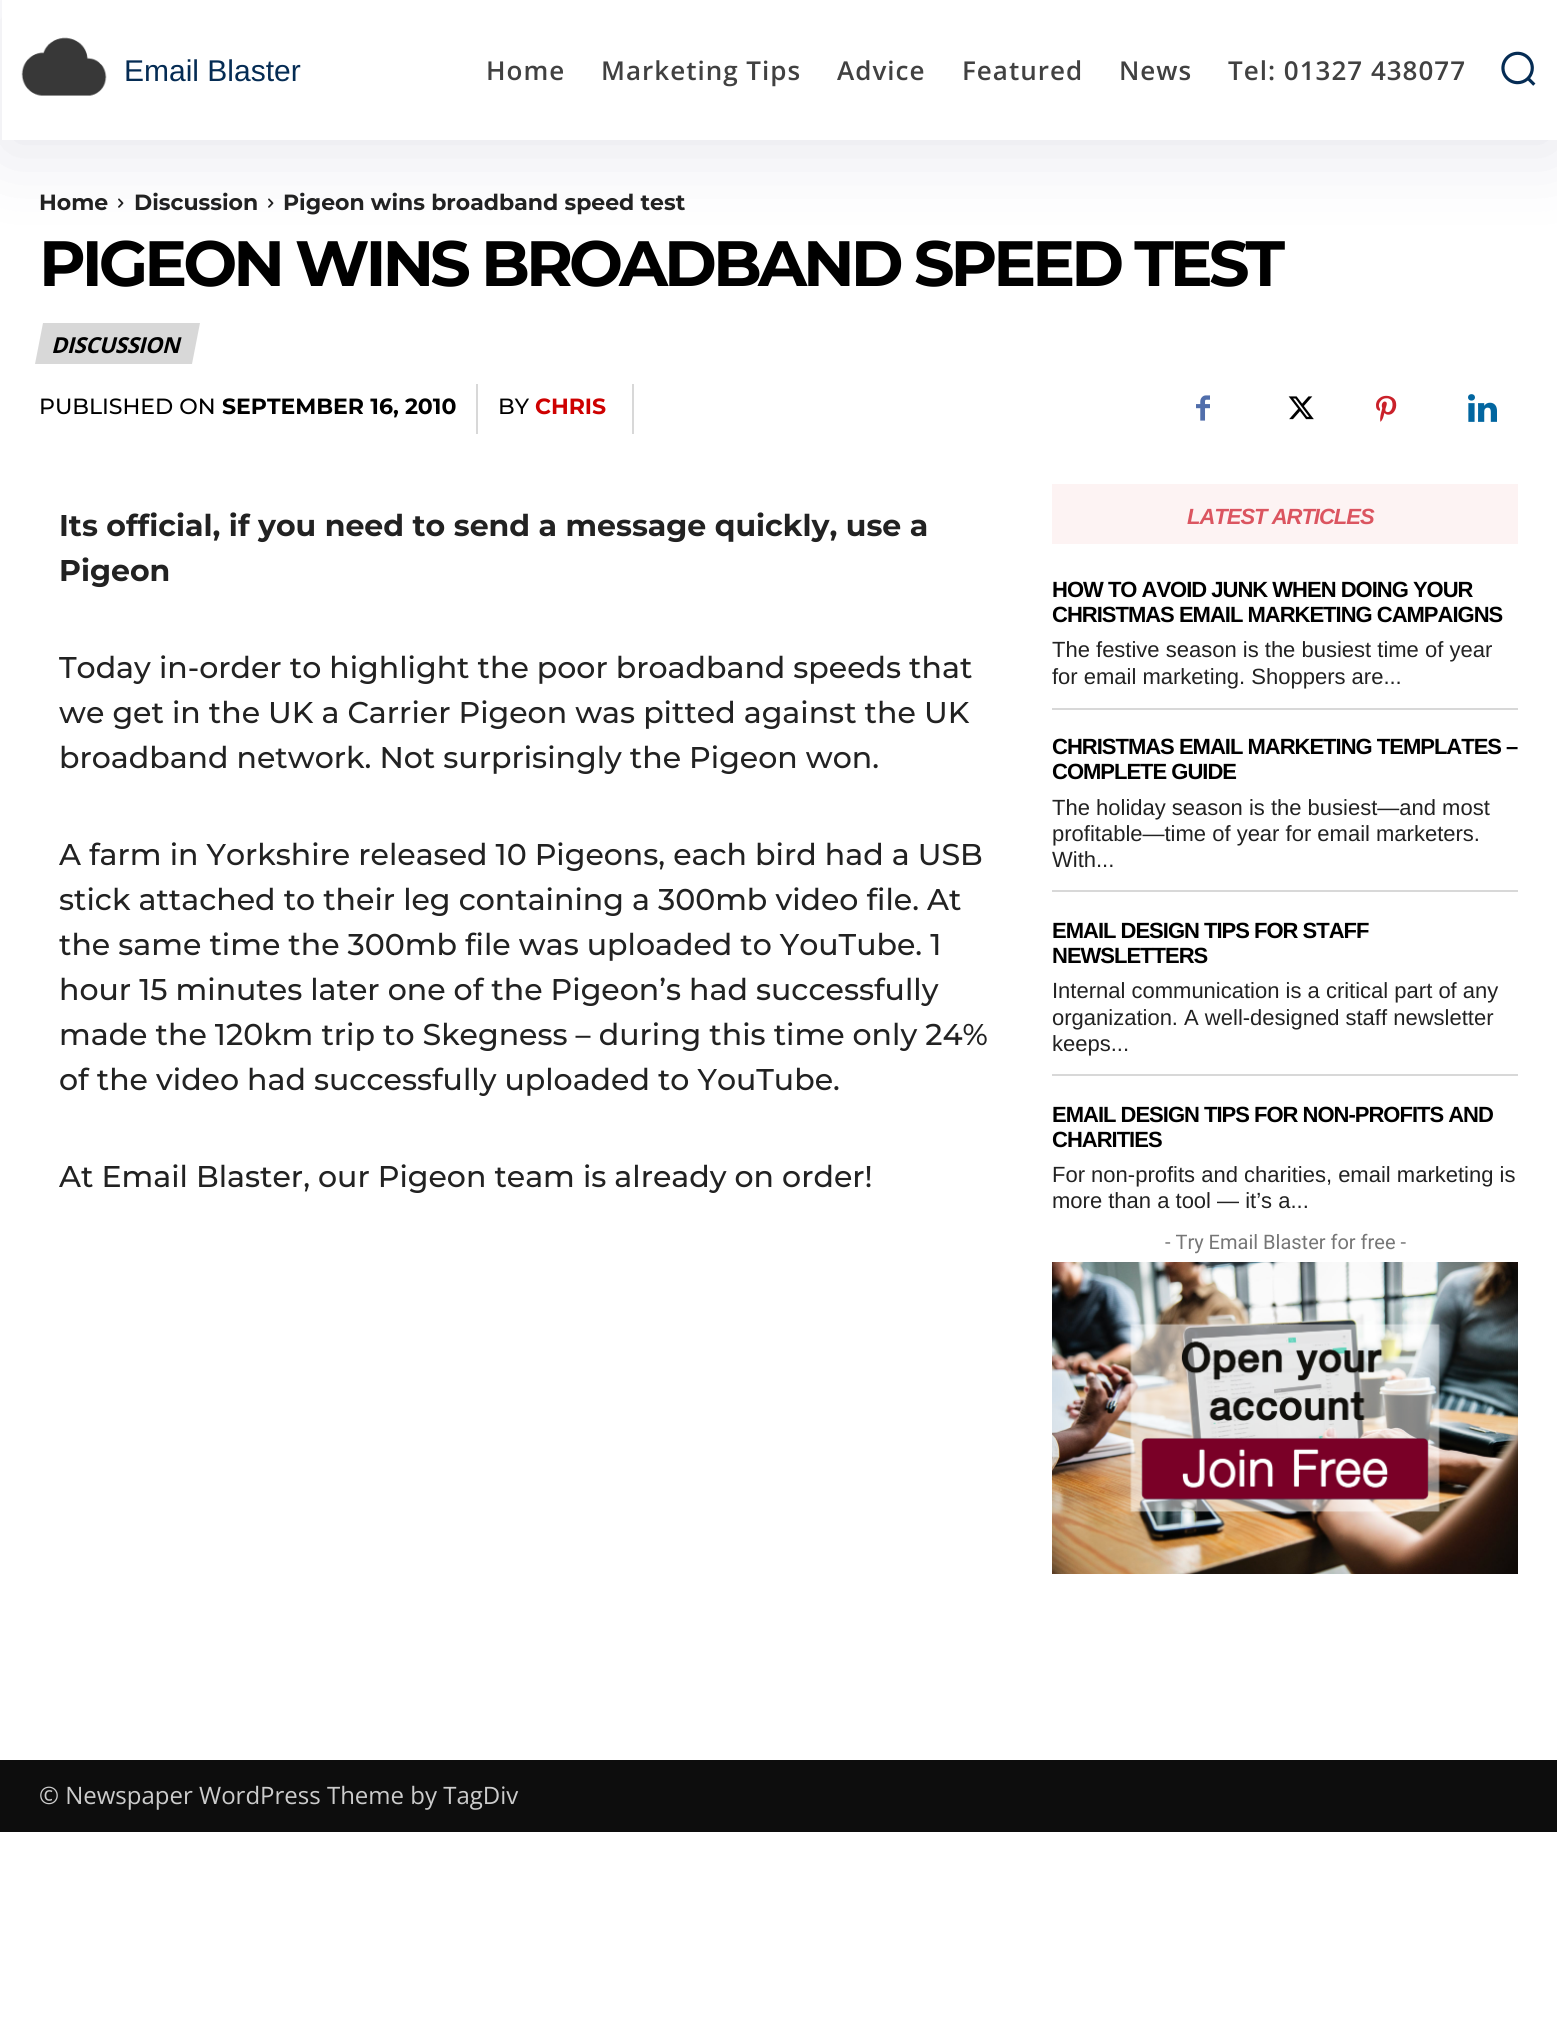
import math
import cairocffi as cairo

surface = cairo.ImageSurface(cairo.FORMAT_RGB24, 1557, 2028)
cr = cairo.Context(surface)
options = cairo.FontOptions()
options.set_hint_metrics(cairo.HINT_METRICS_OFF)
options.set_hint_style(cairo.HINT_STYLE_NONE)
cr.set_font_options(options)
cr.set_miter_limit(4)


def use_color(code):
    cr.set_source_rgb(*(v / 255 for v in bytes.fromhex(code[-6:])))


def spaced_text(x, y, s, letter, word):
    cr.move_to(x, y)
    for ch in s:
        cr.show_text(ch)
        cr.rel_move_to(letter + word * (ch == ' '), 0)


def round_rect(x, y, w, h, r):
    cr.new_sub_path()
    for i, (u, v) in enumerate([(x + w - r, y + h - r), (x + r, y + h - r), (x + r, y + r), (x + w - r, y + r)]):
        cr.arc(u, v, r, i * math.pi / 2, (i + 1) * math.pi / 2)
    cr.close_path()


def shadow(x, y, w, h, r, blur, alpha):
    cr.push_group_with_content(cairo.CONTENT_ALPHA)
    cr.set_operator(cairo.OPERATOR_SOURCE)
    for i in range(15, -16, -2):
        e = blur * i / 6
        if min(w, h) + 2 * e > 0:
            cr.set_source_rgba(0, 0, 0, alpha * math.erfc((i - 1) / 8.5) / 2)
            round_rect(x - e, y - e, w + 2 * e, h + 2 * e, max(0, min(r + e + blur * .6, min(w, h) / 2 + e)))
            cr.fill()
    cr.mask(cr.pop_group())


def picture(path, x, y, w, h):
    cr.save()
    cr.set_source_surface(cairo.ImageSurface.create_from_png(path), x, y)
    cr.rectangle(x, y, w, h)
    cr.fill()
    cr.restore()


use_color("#ffffff")
cr.paint()
picture("img1.png", 21, 37, 86, 59)
picture("img3.png", 118, 198, 6, 10)
picture("img3.png", 268, 198, 6, 10)
cr.save()
cr.set_fill_rule(cairo.FILL_RULE_EVEN_ODD)
cr.new_path()
cr.move_to(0, 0)
cr.line_to(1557, 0)
cr.line_to(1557, 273)
cr.line_to(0, 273)
cr.close_path()
cr.move_to(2, 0)
cr.line_to(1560, 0)
cr.line_to(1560, 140)
cr.line_to(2, 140)
cr.close_path()
cr.clip()
use_color("#020247")
shadow(2, 12, 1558, 140, 0, 40, 0.1)
cr.restore()
cr.select_font_face("Liberation Sans")
cr.set_font_size(30)
use_color("#052c54")
cr.move_to(124, 81)
cr.show_text("Email Blaster")
cr.select_font_face("Open Sans SemiBold")
cr.set_font_size(26)
use_color("#414141")
spaced_text(486, 80, "Home", 1, 0)
spaced_text(601, 80, "Marketing Tips", 1, 0)
spaced_text(837, 80, "Advice", 1, 0)
spaced_text(962, 80, "Featured", 1, 0)
spaced_text(1119, 80, "News", 1, 0)
spaced_text(1228, 80, "Tel: 01327 438077", 1, 0)
picture("img2.png", 1501, 51, 35, 35)
cr.select_font_face("Montserrat", cairo.FONT_SLANT_NORMAL, cairo.FONT_WEIGHT_BOLD)
cr.set_font_size(22)
use_color("#222222")
cr.move_to(39, 210)
cr.show_text("Home")
cr.move_to(134, 210)
cr.show_text("Discussion")
cr.move_to(283, 210)
cr.show_text("Pigeon wins broadband speed test")
cr.set_font_size(64)
use_color("#000000")
spaced_text(39, 286, "PIGEON WINS BROADBAND SPEED TEST", -4, 0)
use_color("#d8d8d8")
cr.new_path()
cr.move_to(43, 323)
cr.line_to(200, 323)
cr.line_to(192, 364)
cr.line_to(35, 364)
cr.close_path()
cr.fill()
cr.select_font_face("Open Sans", cairo.FONT_SLANT_ITALIC, cairo.FONT_WEIGHT_BOLD)
cr.set_font_size(22)
use_color("#000000")
spaced_text(51, 353, "DISCUSSION", -0.5, 0)
use_color("#d8d8d8")
cr.rectangle(476, 384, 2, 50)
cr.fill()
cr.select_font_face("Montserrat Medium")
use_color("#000000")
cr.move_to(39, 414)
cr.show_text("PUBLISHED ON")
cr.select_font_face("Montserrat", cairo.FONT_SLANT_NORMAL, cairo.FONT_WEIGHT_BOLD)
cr.move_to(222, 414)
cr.show_text("SEPTEMBER 16, 2010")
use_color("#d8d8d8")
cr.rectangle(632, 384, 2, 50)
cr.fill()
cr.select_font_face("Montserrat Medium")
use_color("#000000")
cr.move_to(498, 414)
cr.show_text("BY")
cr.select_font_face("Montserrat", cairo.FONT_SLANT_NORMAL, cairo.FONT_WEIGHT_BOLD)
use_color("#ce0000")
cr.move_to(535, 414)
cr.show_text("CHRIS")
picture("img4.png", 1196, 395, 14, 26)
picture("img5.png", 1288, 396, 26, 24)
picture("img6.png", 1376, 395, 21, 27)
picture("img7.png", 1468, 394, 29, 28)
cr.set_font_size(30)
use_color("#222222")
cr.move_to(59, 536)
cr.show_text("Its official, if you need to send a message quickly, use a")
cr.move_to(59, 581)
cr.show_text("Pigeon")
cr.select_font_face("Montserrat Medium")
cr.move_to(59, 678)
cr.show_text("Today in-order to highlight the poor broadband speeds that")
cr.move_to(59, 723)
cr.show_text("we get in the UK a Carrier Pigeon was pitted against the UK")
cr.move_to(59, 768)
cr.show_text("broadband network. Not surprisingly the Pigeon won.")
cr.move_to(59, 865)
cr.show_text("A farm in Yorkshire released 10 Pigeons, each bird had a USB")
cr.move_to(59, 910)
cr.show_text("stick attached to their leg containing a 300mb video file. At")
cr.move_to(59, 955)
cr.show_text("the same time the 300mb file was uploaded to YouTube. 1")
cr.move_to(59, 1000)
cr.show_text("hour 15 minutes later one of the Pigeon’s had successfully")
cr.move_to(59, 1045)
cr.show_text("made the 120km trip to Skegness – during this time only 24%")
cr.move_to(59, 1090)
cr.show_text("of the video had successfully uploaded to YouTube.")
cr.move_to(59, 1187)
cr.show_text("At Email Blaster, our Pigeon team is already on order!")
use_color("#fdf3f3")
cr.rectangle(1052, 484, 466, 60)
cr.fill()
cr.select_font_face("Liberation Sans", cairo.FONT_SLANT_ITALIC, cairo.FONT_WEIGHT_BOLD)
cr.set_font_size(22)
use_color("#db5560")
spaced_text(1187, 524, "LATEST ARTICLES", -1, 0)
cr.select_font_face("Liberation Sans", cairo.FONT_SLANT_NORMAL, cairo.FONT_WEIGHT_BOLD)
use_color("#000000")
spaced_text(1052, 597, "HOW TO AVOID JUNK WHEN DOING YOUR", -1, 0)
spaced_text(1052, 622, "CHRISTMAS EMAIL MARKETING CAMPAIGNS", -1, 0)
cr.select_font_face("Liberation Sans")
use_color("#222222")
cr.move_to(1052, 657)
cr.show_text("The festive season is the busiest time of year")
cr.move_to(1052, 684)
cr.show_text("for email marketing. Shoppers are...")
use_color("#d8d8d8")
cr.rectangle(1052, 708, 466, 2)
cr.fill()
cr.select_font_face("Liberation Sans", cairo.FONT_SLANT_NORMAL, cairo.FONT_WEIGHT_BOLD)
use_color("#000000")
spaced_text(1052, 754, "CHRISTMAS EMAIL MARKETING TEMPLATES –", -1, 0)
spaced_text(1052, 779, "COMPLETE GUIDE", -1, 0)
cr.select_font_face("Liberation Sans")
use_color("#222222")
cr.move_to(1052, 815)
cr.show_text("The holiday season is the busiest—and most")
cr.move_to(1052, 841)
cr.show_text("profitable—time of year for email marketers.")
cr.move_to(1052, 867)
cr.show_text("With...")
use_color("#d8d8d8")
cr.rectangle(1052, 890, 466, 2)
cr.fill()
cr.select_font_face("Liberation Sans", cairo.FONT_SLANT_NORMAL, cairo.FONT_WEIGHT_BOLD)
use_color("#000000")
spaced_text(1052, 938, "EMAIL DESIGN TIPS FOR STAFF", -1, 0)
spaced_text(1052, 963, "NEWSLETTERS", -1, 0)
cr.select_font_face("Liberation Sans")
use_color("#222222")
cr.move_to(1052, 998)
cr.show_text("Internal communication is a critical part of any")
cr.move_to(1052, 1025)
cr.show_text("organization. A well-designed staff newsletter")
cr.move_to(1052, 1051)
cr.show_text("keeps...")
use_color("#d8d8d8")
cr.rectangle(1052, 1074, 466, 2)
cr.fill()
cr.select_font_face("Liberation Sans", cairo.FONT_SLANT_NORMAL, cairo.FONT_WEIGHT_BOLD)
use_color("#000000")
spaced_text(1052, 1122, "EMAIL DESIGN TIPS FOR NON-PROFITS AND", -1, 0)
spaced_text(1052, 1147, "CHARITIES", -1, 0)
cr.select_font_face("Liberation Sans")
use_color("#222222")
cr.move_to(1052, 1182)
cr.show_text("For non-profits and charities, email marketing is")
cr.move_to(1052, 1208)
cr.show_text("more than a tool — it’s a...")
cr.select_font_face("Roboto")
cr.set_font_size(20)
use_color("#767676")
cr.move_to(1165, 1249)
cr.show_text("- Try Email Blaster for free -")
picture("img8.png", 1052, 1262, 466, 312)
use_color("#0d0d0d")
cr.rectangle(0, 1760, 1557, 72)
cr.fill()
cr.select_font_face("Open Sans")
cr.set_font_size(24)
use_color("#cccccc")
cr.move_to(39, 1804)
cr.show_text("© Newspaper WordPress Theme by TagDiv")
surface.write_to_png("result.png")
